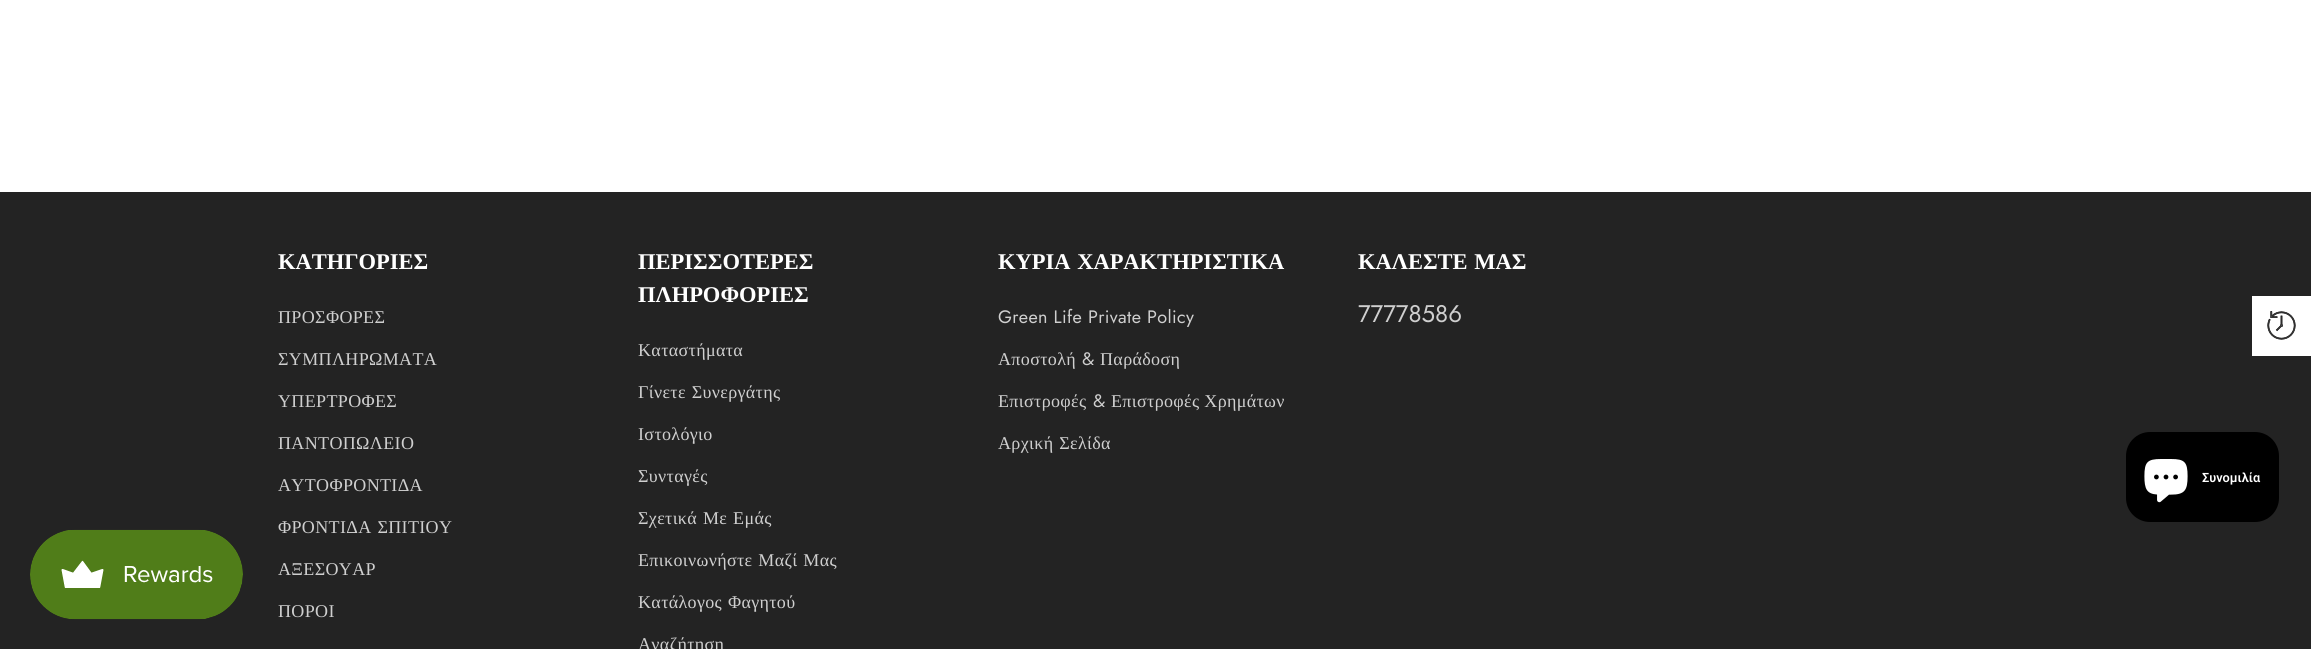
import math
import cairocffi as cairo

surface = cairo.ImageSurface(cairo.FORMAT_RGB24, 2311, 649)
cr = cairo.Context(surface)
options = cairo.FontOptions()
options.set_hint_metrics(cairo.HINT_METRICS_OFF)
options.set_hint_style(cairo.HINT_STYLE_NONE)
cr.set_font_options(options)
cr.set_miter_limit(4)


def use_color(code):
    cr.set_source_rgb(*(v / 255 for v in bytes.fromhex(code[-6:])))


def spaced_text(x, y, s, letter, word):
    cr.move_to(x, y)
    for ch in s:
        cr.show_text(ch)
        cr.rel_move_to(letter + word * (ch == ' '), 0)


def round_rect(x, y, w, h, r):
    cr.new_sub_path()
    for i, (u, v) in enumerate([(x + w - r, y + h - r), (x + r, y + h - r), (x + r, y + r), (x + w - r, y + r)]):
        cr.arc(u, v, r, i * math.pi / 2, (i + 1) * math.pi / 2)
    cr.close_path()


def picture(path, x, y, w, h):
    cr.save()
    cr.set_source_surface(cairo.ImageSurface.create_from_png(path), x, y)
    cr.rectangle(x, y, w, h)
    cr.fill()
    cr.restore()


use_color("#ffffff")
cr.paint()
use_color("#232323")
cr.rectangle(0, 192, 2311, 457)
cr.fill()
cr.select_font_face("Liberation Serif", cairo.FONT_SLANT_NORMAL, cairo.FONT_WEIGHT_BOLD)
cr.set_font_size(22.5)
use_color("#ffffff")
cr.move_to(278, 269)
cr.show_text("ΚΑΤΗΓΟΡΙΕΣ")
cr.select_font_face("Liberation Serif")
cr.set_font_size(18)
use_color("#cfcfcf")
spaced_text(278, 323, "ΠΡΟΣΦΟΡΕΣ", 0.35, 0)
spaced_text(278, 365, "ΣΥΜΠΛΗΡΩΜΑΤΑ", 0.35, 0)
spaced_text(278, 407, "ΥΠΕΡΤΡΟΦΕΣ", 0.35, 0)
spaced_text(278, 449, "ΠΑΝΤΟΠΩΛΕΙΟ", 0.35, 0)
spaced_text(278, 491, "ΑΥΤΟΦΡΟΝΤΙΔΑ", 0.35, 0)
spaced_text(278, 533, "ΦΡΟΝΤΙΔΑ ΣΠΙΤΙΟΥ", 0.35, 1)
spaced_text(278, 575, "ΑΞΕΣΟΥΑΡ", 0.35, 0)
spaced_text(278, 617, "ΠΟΡΟΙ", 0.35, 0)
cr.select_font_face("Liberation Serif", cairo.FONT_SLANT_NORMAL, cairo.FONT_WEIGHT_BOLD)
cr.set_font_size(22.5)
use_color("#ffffff")
cr.move_to(638, 269)
cr.show_text("ΠΕΡΙΣΣΟΤΕΡΕΣ")
cr.move_to(638, 302)
cr.show_text("ΠΛΗΡΟΦΟΡΙΕΣ")
cr.select_font_face("Liberation Serif")
cr.set_font_size(18)
use_color("#cfcfcf")
spaced_text(638, 356, "Καταστήματα", 0.35, 0)
spaced_text(638, 398, "Γίνετε Συνεργάτης", 0.35, 1)
spaced_text(638, 440, "Ιστολόγιο", 0.35, 0)
spaced_text(638, 482, "Συνταγές", 0.35, 0)
spaced_text(638, 524, "Σχετικά Με Εμάς", 0.35, 1)
spaced_text(638, 566, "Επικοινωνήστε Μαζί Μας", 0.35, 1)
spaced_text(638, 608, "Κατάλογος Φαγητού", 0.35, 1)
spaced_text(638, 650, "Αναζήτηση", 0.35, 0)
cr.select_font_face("Liberation Serif", cairo.FONT_SLANT_NORMAL, cairo.FONT_WEIGHT_BOLD)
cr.set_font_size(22.5)
use_color("#ffffff")
spaced_text(998, 269, "ΚΥΡΙΑ ΧΑΡΑΚΤΗΡΙΣΤΙΚΑ", 0, 1)
cr.select_font_face("Jost")
cr.set_font_size(18)
use_color("#cfcfcf")
spaced_text(998, 323, "Green Life Private Policy", 0.35, 0)
cr.select_font_face("Liberation Serif")
spaced_text(998, 365, "Αποστολή", 0.35, 0)
cr.select_font_face("Jost")
spaced_text(1082, 365, "&", 0.35, 0)
cr.select_font_face("Liberation Serif")
spaced_text(1100, 365, "Παράδοση", 0.35, 0)
spaced_text(998, 407, "Επιστροφές", 0.35, 0)
cr.select_font_face("Jost")
spaced_text(1093, 407, "&", 0.35, 0)
cr.select_font_face("Liberation Serif")
spaced_text(1111, 407, "Επιστροφές Χρημάτων", 0.35, 0)
spaced_text(998, 449, "Αρχική Σελίδα", 0.35, 1)
cr.select_font_face("Liberation Serif", cairo.FONT_SLANT_NORMAL, cairo.FONT_WEIGHT_BOLD)
cr.set_font_size(22.5)
use_color("#ffffff")
spaced_text(1358, 269, "ΚΑΛΕΣΤΕ ΜΑΣ", 0, 1)
cr.select_font_face("Jost")
cr.set_font_size(24)
use_color("#cfcfcf")
cr.move_to(1358, 322)
cr.show_text("77778586")
use_color("#ffffff")
cr.rectangle(2252, 296, 59, 60)
cr.fill()
picture("img1.png", 2267, 311, 29, 29)
use_color("#000000")
round_rect(2126, 432, 153, 90, 24)
cr.fill()
picture("img2.png", 2144, 459, 44, 44)
cr.select_font_face("Roboto SemiBold")
cr.set_font_size(12.75)
use_color("#ffffff")
cr.move_to(2202, 482)
cr.show_text("Συνομιλία")
picture("img3.png", 30, 529, 213, 91)
surface.write_to_png("result.png")
